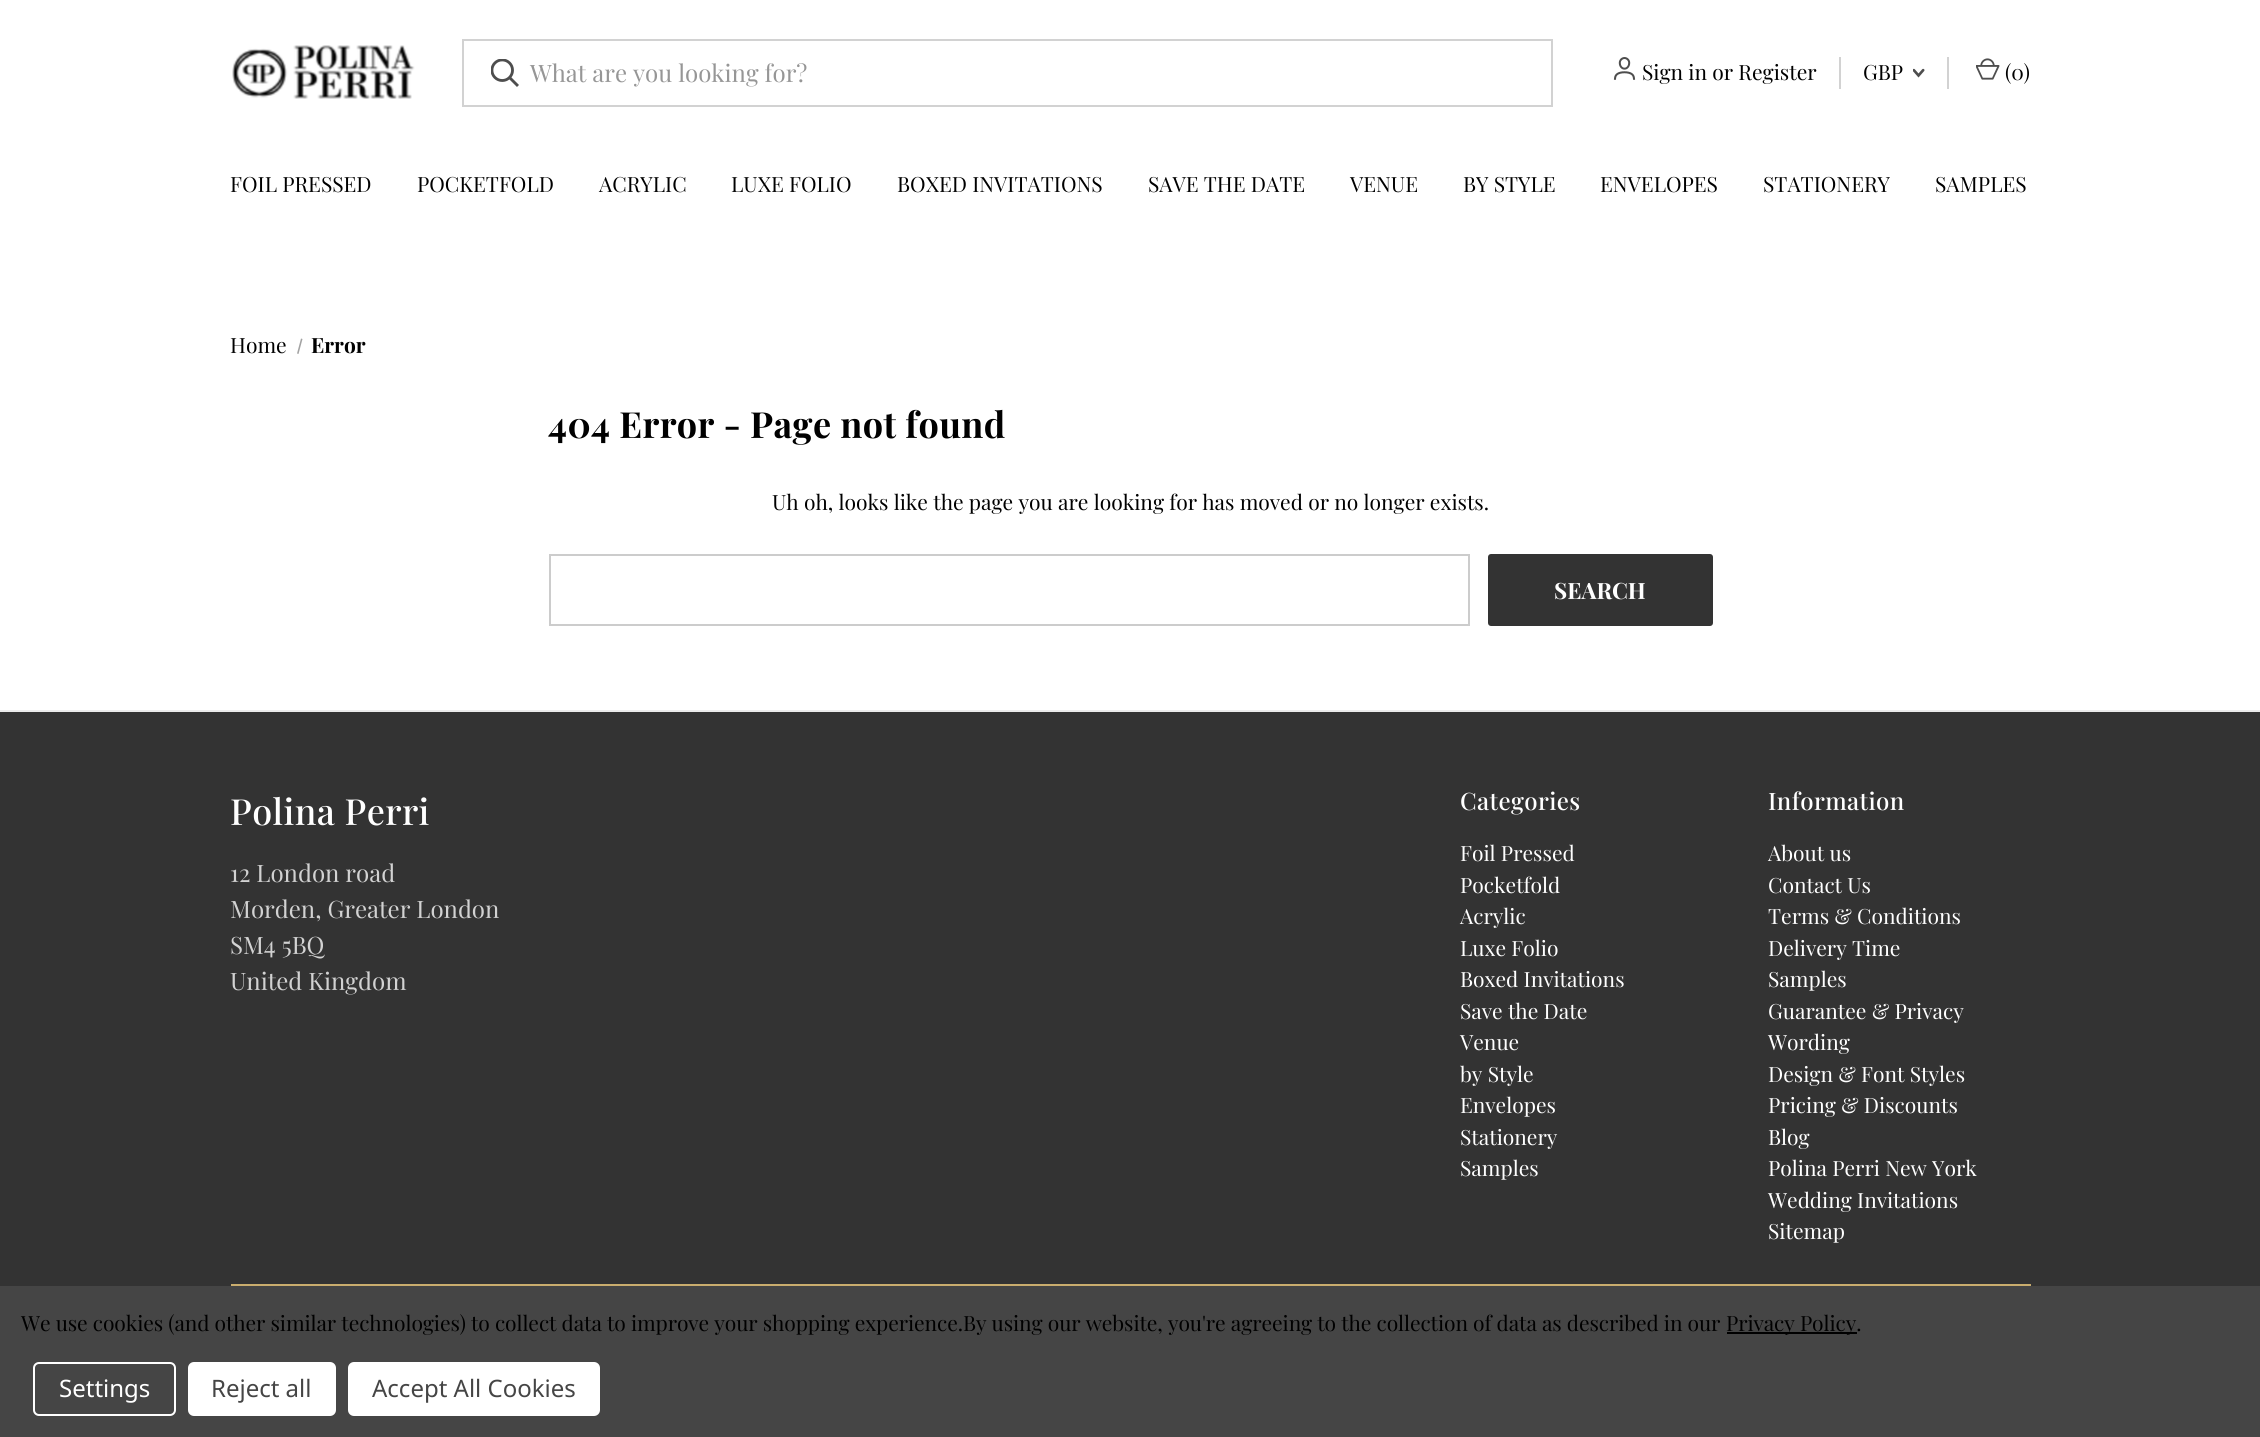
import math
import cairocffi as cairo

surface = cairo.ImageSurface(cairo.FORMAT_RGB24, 2260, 1437)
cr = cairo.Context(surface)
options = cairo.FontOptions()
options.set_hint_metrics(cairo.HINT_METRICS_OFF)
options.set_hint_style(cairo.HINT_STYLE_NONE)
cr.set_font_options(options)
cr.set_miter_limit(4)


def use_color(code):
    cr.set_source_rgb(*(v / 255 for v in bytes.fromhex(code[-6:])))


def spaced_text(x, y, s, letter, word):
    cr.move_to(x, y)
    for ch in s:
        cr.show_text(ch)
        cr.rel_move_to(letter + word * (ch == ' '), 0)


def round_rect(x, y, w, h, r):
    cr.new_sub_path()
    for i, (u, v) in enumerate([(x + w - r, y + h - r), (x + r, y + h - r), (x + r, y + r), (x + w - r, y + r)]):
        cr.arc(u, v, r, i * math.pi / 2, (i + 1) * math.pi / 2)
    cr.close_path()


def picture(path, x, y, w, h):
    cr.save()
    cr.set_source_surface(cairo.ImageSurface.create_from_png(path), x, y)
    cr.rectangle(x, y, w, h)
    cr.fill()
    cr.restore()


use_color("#ffffff")
cr.paint()
picture("img1.png", 232, 45, 183, 54)
cr.rectangle(463, 40, 1089, 66)
use_color("#d2d2d2")
cr.stroke()
picture("img2.png", 491, 59, 28, 28)
cr.select_font_face("Playfair Display")
cr.set_font_size(24)
use_color("#969696")
cr.move_to(530, 82)
cr.show_text("What are you looking for?")
picture("img3.png", 1613, 57, 23, 23)
cr.set_font_size(21)
use_color("#000000")
cr.move_to(1642, 80)
cr.show_text("Sign in or Register")
use_color("#d2d2d2")
cr.rectangle(1839, 57, 2, 32)
cr.fill()
use_color("#000000")
cr.move_to(1863, 80)
cr.show_text("GBP")
picture("img4.png", 1913, 68, 12, 10)
use_color("#d2d2d2")
cr.rectangle(1947, 57, 2, 32)
cr.fill()
picture("img5.png", 1976, 58, 24, 22)
use_color("#000000")
cr.move_to(2005, 80)
cr.show_text("(0)")
cr.move_to(230, 192)
cr.show_text("FOIL PRESSED")
cr.move_to(417, 192)
cr.show_text("POCKETFOLD")
cr.move_to(599, 192)
cr.show_text("ACRYLIC")
cr.move_to(731, 192)
cr.show_text("LUXE FOLIO")
cr.move_to(897, 192)
cr.show_text("BOXED INVITATIONS")
cr.move_to(1148, 192)
cr.show_text("SAVE THE DATE")
cr.move_to(1350, 192)
cr.show_text("VENUE")
cr.move_to(1463, 192)
cr.show_text("BY STYLE")
cr.move_to(1600, 192)
cr.show_text("ENVELOPES")
cr.move_to(1763, 192)
cr.show_text("STATIONERY")
cr.move_to(1935, 192)
cr.show_text("SAMPLES")
cr.move_to(230, 353)
cr.show_text("Home")
use_color("#a3a3a3")
cr.new_path()
cr.move_to(301, 338.5)
cr.line_to(302.5, 339)
cr.line_to(298.5, 354)
cr.line_to(297, 353.5)
cr.close_path()
cr.fill()
cr.select_font_face("Playfair Display", cairo.FONT_SLANT_NORMAL, cairo.FONT_WEIGHT_BOLD)
use_color("#000000")
cr.move_to(311, 353)
cr.show_text("Error")
cr.set_font_size(36)
spaced_text(548, 438, "404 Error - Page not found", 0.4, 0)
cr.select_font_face("Playfair Display")
cr.set_font_size(21)
cr.move_to(772, 510)
cr.show_text("Uh oh, looks like the page you are looking for has moved or no longer exists.")
cr.rectangle(550, 555, 919, 70)
use_color("#cccccc")
cr.stroke()
use_color("#333333")
round_rect(1488, 554, 225, 72, 3)
cr.fill()
cr.select_font_face("Playfair Display", cairo.FONT_SLANT_NORMAL, cairo.FONT_WEIGHT_BOLD)
cr.set_font_size(22.5)
use_color("#ffffff")
cr.move_to(1554, 599)
cr.show_text("SEARCH")
use_color("#333333")
cr.rectangle(0, 712, 2260, 574)
cr.fill()
use_color("#ebebeb")
cr.rectangle(0, 710, 2260, 2)
cr.fill()
cr.select_font_face("Playfair Display Medium")
cr.set_font_size(36)
use_color("#ffffff")
spaced_text(230, 825, "Polina Perri", 0.4, 0)
cr.select_font_face("Playfair Display")
cr.set_font_size(24)
use_color("#d2d2d2")
cr.move_to(230, 882)
cr.show_text("12 London road")
cr.move_to(230, 918)
cr.show_text("Morden, Greater London")
cr.move_to(230, 954)
cr.show_text("SM4 5BQ")
cr.move_to(230, 990)
cr.show_text("United Kingdom")
cr.select_font_face("Playfair Display Medium")
use_color("#ffffff")
spaced_text(1460, 810, "Categories", 0.4, 0)
cr.select_font_face("Playfair Display")
cr.set_font_size(21)
cr.move_to(1460, 861)
cr.show_text("Foil Pressed")
cr.move_to(1460, 893)
cr.show_text("Pocketfold")
cr.move_to(1460, 924)
cr.show_text("Acrylic")
cr.move_to(1460, 956)
cr.show_text("Luxe Folio")
cr.move_to(1460, 987)
cr.show_text("Boxed Invitations")
cr.move_to(1460, 1019)
cr.show_text("Save the Date")
cr.move_to(1460, 1050)
cr.show_text("Venue")
cr.move_to(1460, 1082)
cr.show_text("by Style")
cr.move_to(1460, 1113)
cr.show_text("Envelopes")
cr.move_to(1460, 1145)
cr.show_text("Stationery")
cr.move_to(1460, 1176)
cr.show_text("Samples")
cr.select_font_face("Playfair Display Medium")
cr.set_font_size(24)
spaced_text(1768, 810, "Information", 0.4, 0)
cr.select_font_face("Playfair Display")
cr.set_font_size(21)
cr.move_to(1768, 861)
cr.show_text("About us")
cr.move_to(1768, 893)
cr.show_text("Contact Us")
cr.move_to(1768, 924)
cr.show_text("Terms & Conditions")
cr.move_to(1768, 956)
cr.show_text("Delivery Time")
cr.move_to(1768, 987)
cr.show_text("Samples")
cr.move_to(1768, 1019)
cr.show_text("Guarantee & Privacy")
cr.move_to(1768, 1050)
cr.show_text("Wording")
cr.move_to(1768, 1082)
cr.show_text("Design & Font Styles")
cr.move_to(1768, 1113)
cr.show_text("Pricing & Discounts")
cr.move_to(1768, 1145)
cr.show_text("Blog")
cr.move_to(1768, 1176)
cr.show_text("Polina Perri New York")
cr.move_to(1768, 1208)
cr.show_text("Wedding Invitations")
cr.move_to(1768, 1239)
cr.show_text("Sitemap")
use_color("#caad6e")
cr.rectangle(231, 1284, 1800, 2)
cr.fill()
use_color("#454545")
cr.rectangle(0, 1286, 2260, 151)
cr.fill()
use_color("#000000")
spaced_text(21, 1331, "We use cookies (and other similar technologies) to collect data to improve your shopping experience.By using our website, you're agreeing to the collection of data as described in our", -0.08, 0)
cr.rectangle(1727, 1332, 130, 2)
cr.fill()
spaced_text(1726, 1331, "Privacy Policy.", -0.08, 0)
round_rect(34, 1363, 141, 52, 5)
use_color("#ffffff")
cr.stroke()
cr.select_font_face("Noto Sans")
cr.set_font_size(24)
cr.move_to(59, 1397)
cr.show_text("Settings")
round_rect(188, 1362, 148, 54, 6)
cr.fill()
use_color("#454545")
cr.move_to(211, 1397)
cr.show_text("Reject all")
use_color("#ffffff")
round_rect(348, 1362, 252, 54, 6)
cr.fill()
use_color("#454545")
cr.move_to(372, 1397)
cr.show_text("Accept All Cookies")
surface.write_to_png("result.png")
